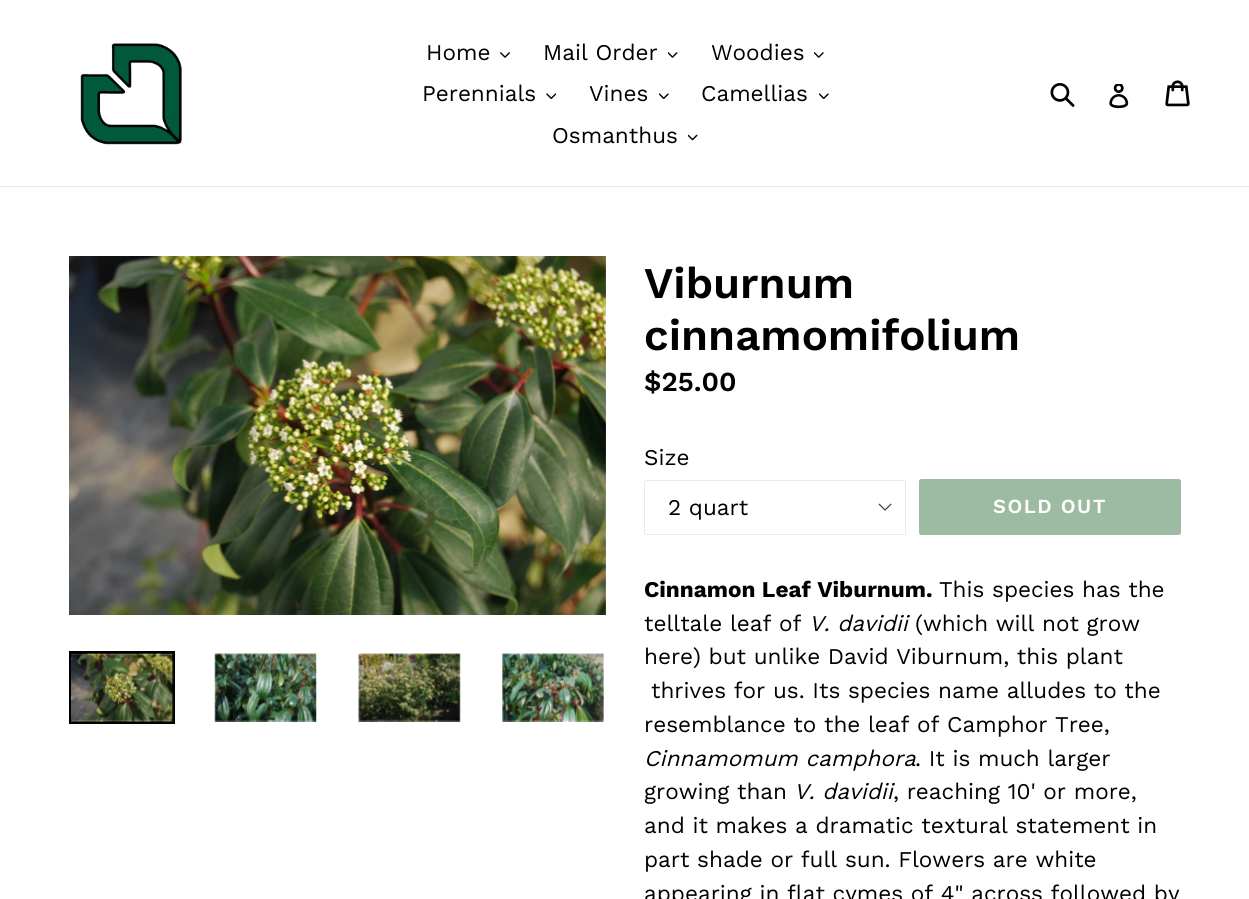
import math
import cairocffi as cairo

surface = cairo.ImageSurface(cairo.FORMAT_RGB24, 1249, 899)
cr = cairo.Context(surface)
options = cairo.FontOptions()
options.set_hint_metrics(cairo.HINT_METRICS_OFF)
options.set_hint_style(cairo.HINT_STYLE_NONE)
cr.set_font_options(options)
cr.set_miter_limit(4)


def use_color(code):
    cr.set_source_rgb(*(v / 255 for v in bytes.fromhex(code[-6:])))


def spaced_text(x, y, s, letter, word):
    cr.move_to(x, y)
    for ch in s:
        cr.show_text(ch)
        cr.rel_move_to(letter + word * (ch == ' '), 0)


def round_rect(x, y, w, h, r):
    cr.new_sub_path()
    for i, (u, v) in enumerate([(x + w - r, y + h - r), (x + r, y + h - r), (x + r, y + r), (x + w - r, y + r)]):
        cr.arc(u, v, r, i * math.pi / 2, (i + 1) * math.pi / 2)
    cr.close_path()


def picture(path, x, y, w, h):
    cr.save()
    cr.set_source_surface(cairo.ImageSurface.create_from_png(path), x, y)
    cr.rectangle(x, y, w, h)
    cr.fill()
    cr.restore()


use_color("#ffffff")
cr.paint()
use_color("#e8e9eb")
cr.rectangle(0, 186, 1249, 1)
cr.fill()
picture("img1.png", 80, 43, 102, 102)
cr.select_font_face("Work Sans")
cr.set_font_size(22.5)
use_color("#000000")
cr.move_to(426, 60)
cr.show_text("Home")
picture("img2.png", 500, 52, 10, 6)
cr.move_to(543, 60)
cr.show_text("Mail Order")
picture("img3.png", 668, 52, 10, 6)
cr.move_to(711, 60)
cr.show_text("Woodies")
picture("img4.png", 814, 52, 10, 6)
cr.move_to(422, 101)
cr.show_text("Perennials")
picture("img5.png", 546, 93, 10, 7)
cr.move_to(589, 101)
cr.show_text("Vines")
picture("img6.png", 659, 93, 10, 7)
cr.move_to(701, 101)
cr.show_text("Camellias")
picture("img6.png", 819, 93, 10, 7)
cr.move_to(552, 143)
cr.show_text("Osmanthus")
picture("img7.png", 688, 134, 10, 7)
picture("img8.png", 1050, 83, 25, 24)
picture("img9.png", 1109, 84, 20, 25)
picture("img10.png", 1165, 80, 25, 27)
picture("img11.png", 69, 256, 537, 359)
cr.rectangle(70.5, 652.5, 103, 70)
cr.set_line_width(3)
cr.stroke()
picture("img12.png", 71, 653, 103, 69)
picture("img13.png", 214, 653, 103, 69)
picture("img14.png", 358, 653, 103, 69)
picture("img15.png", 502, 653, 102, 69)
cr.select_font_face("Work Sans SemiBold")
cr.set_font_size(43.75)
cr.move_to(644, 298)
cr.show_text("Viburnum")
cr.move_to(644, 350)
cr.show_text("cinnamomifolium")
cr.set_font_size(27.5)
cr.move_to(644, 391)
cr.show_text("$25.00")
cr.select_font_face("Work Sans")
cr.set_font_size(22.5)
cr.move_to(644, 465)
cr.show_text("Size")
picture("img16.png", 878, 503, 14, 8)
round_rect(644.5, 480.5, 261, 54, 2)
use_color("#e8e9eb")
cr.set_line_width(1)
cr.stroke()
use_color("#000000")
cr.move_to(668, 515)
cr.show_text("2 quart")
use_color("#9dbba2")
round_rect(919, 479, 262, 56, 2.5)
cr.fill()
cr.select_font_face("Work Sans SemiBold")
cr.set_font_size(20)
use_color("#ffffff")
spaced_text(993, 513, "SOLD OUT", 1.5, 0)
cr.select_font_face("Work Sans", cairo.FONT_SLANT_NORMAL, cairo.FONT_WEIGHT_BOLD)
cr.set_font_size(22.5)
use_color("#000000")
cr.move_to(644, 597)
cr.show_text("Cinnamon Leaf Viburnum.")
cr.select_font_face("Work Sans")
cr.move_to(939, 597)
cr.show_text("This species has the")
cr.move_to(644, 631)
cr.show_text("telltale leaf of")
cr.select_font_face("Work Sans", cairo.FONT_SLANT_ITALIC)
cr.move_to(809, 631)
cr.show_text("V. davidii")
cr.select_font_face("Work Sans")
cr.move_to(915, 631)
cr.show_text("(which will not grow")
cr.move_to(644, 664)
cr.show_text("here) but unlike David Viburnum, this plant")
cr.move_to(651, 698)
cr.show_text("thrives for us. Its species name alludes to the")
cr.move_to(644, 732)
cr.show_text("resemblance to the leaf of Camphor Tree,")
cr.select_font_face("Work Sans", cairo.FONT_SLANT_ITALIC)
cr.move_to(644, 766)
cr.show_text("Cinnamomum camphora")
cr.select_font_face("Work Sans")
cr.move_to(915, 766)
cr.show_text(". It is much larger")
cr.move_to(644, 799)
cr.show_text("growing than")
cr.select_font_face("Work Sans", cairo.FONT_SLANT_ITALIC)
cr.move_to(794, 799)
cr.show_text("V. davidii")
cr.select_font_face("Work Sans")
cr.move_to(893, 799)
cr.show_text(", reaching 10' or more,")
cr.move_to(644, 833)
cr.show_text("and it makes a dramatic textural statement in")
cr.move_to(644, 867)
cr.show_text("part shade or full sun. Flowers are white")
cr.move_to(644, 901)
cr.show_text("appearing in flat cymes of 4\" across followed by")
surface.write_to_png("result.png")
